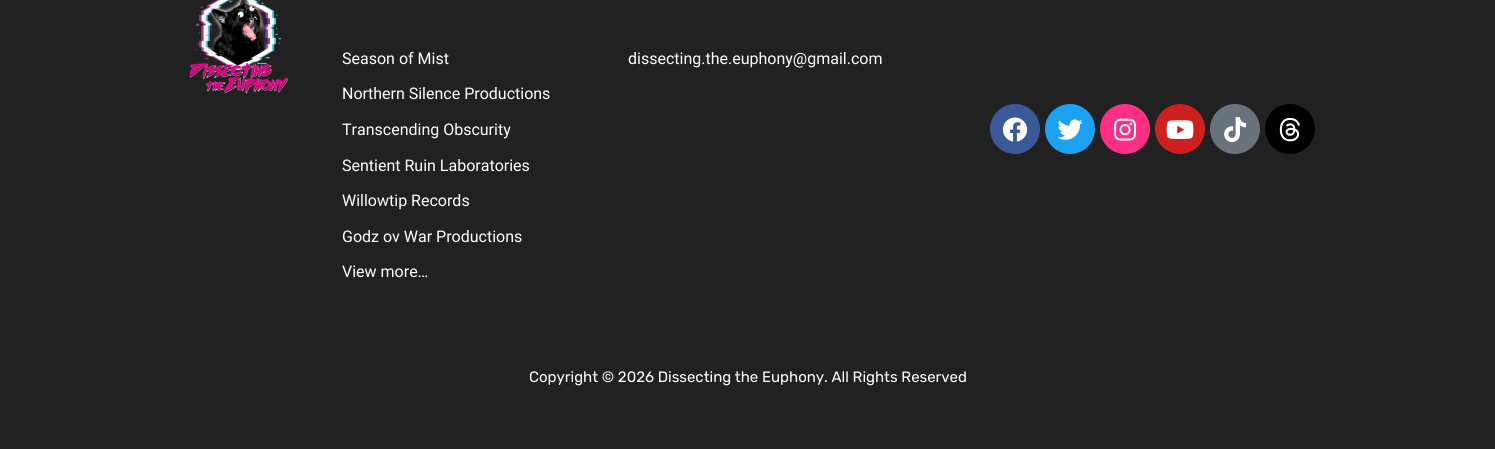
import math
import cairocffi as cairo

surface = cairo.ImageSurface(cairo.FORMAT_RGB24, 1495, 449)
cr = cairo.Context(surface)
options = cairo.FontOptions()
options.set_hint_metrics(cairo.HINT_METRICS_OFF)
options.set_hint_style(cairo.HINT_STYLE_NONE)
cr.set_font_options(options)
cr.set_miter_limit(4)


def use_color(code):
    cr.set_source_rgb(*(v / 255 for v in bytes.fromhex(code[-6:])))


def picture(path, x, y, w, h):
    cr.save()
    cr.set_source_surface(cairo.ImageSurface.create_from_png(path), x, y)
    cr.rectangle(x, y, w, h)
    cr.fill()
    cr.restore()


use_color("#212121")
cr.paint()
picture("img1.png", 189, 0, 99, 94)
cr.select_font_face("Roboto")
cr.set_font_size(16)
use_color("#ffffff")
cr.move_to(342, 64)
cr.show_text("Season of Mist")
cr.move_to(342, 99)
cr.show_text("Northern Silence Productions")
cr.move_to(342, 135)
cr.show_text("Transcending Obscurity")
cr.move_to(342, 171)
cr.show_text("Sentient Ruin Laboratories")
cr.move_to(342, 206)
cr.show_text("Willowtip Records")
cr.move_to(342, 242)
cr.show_text("Godz ov War Productions")
cr.move_to(342, 277)
cr.show_text("View more…")
cr.move_to(628, 64)
cr.show_text("dissecting.the.euphony@gmail.com")
use_color("#3b5998")
cr.new_path()
cr.arc(1015, 129, 25, 0, 2 * math.pi)
cr.fill()
picture("img2.png", 1002, 117, 26, 25)
use_color("#1da1f2")
cr.arc(1070, 129, 25, 0, 2 * math.pi)
cr.fill()
picture("img3.png", 1057, 119, 26, 21)
use_color("#fe3086")
cr.arc(1125, 129, 25, 0, 2 * math.pi)
cr.fill()
picture("img4.png", 1114, 118, 22, 23)
use_color("#cd201f")
cr.arc(1180, 129, 25, 0, 2 * math.pi)
cr.fill()
picture("img5.png", 1166, 120, 28, 19)
use_color("#69727d")
cr.arc(1235, 129, 25, 0, 2 * math.pi)
cr.fill()
picture("img6.png", 1224, 117, 22, 26)
use_color("#000000")
cr.arc(1290, 129, 25, 0, 2 * math.pi)
cr.fill()
picture("img7.png", 1279, 117, 21, 25)
cr.select_font_face("Rubik")
cr.set_font_size(15)
use_color("#ffffff")
cr.move_to(529, 382)
cr.show_text("Copyright © 2026 Dissecting the Euphony. All Rights Reserved")
surface.write_to_png("result.png")
